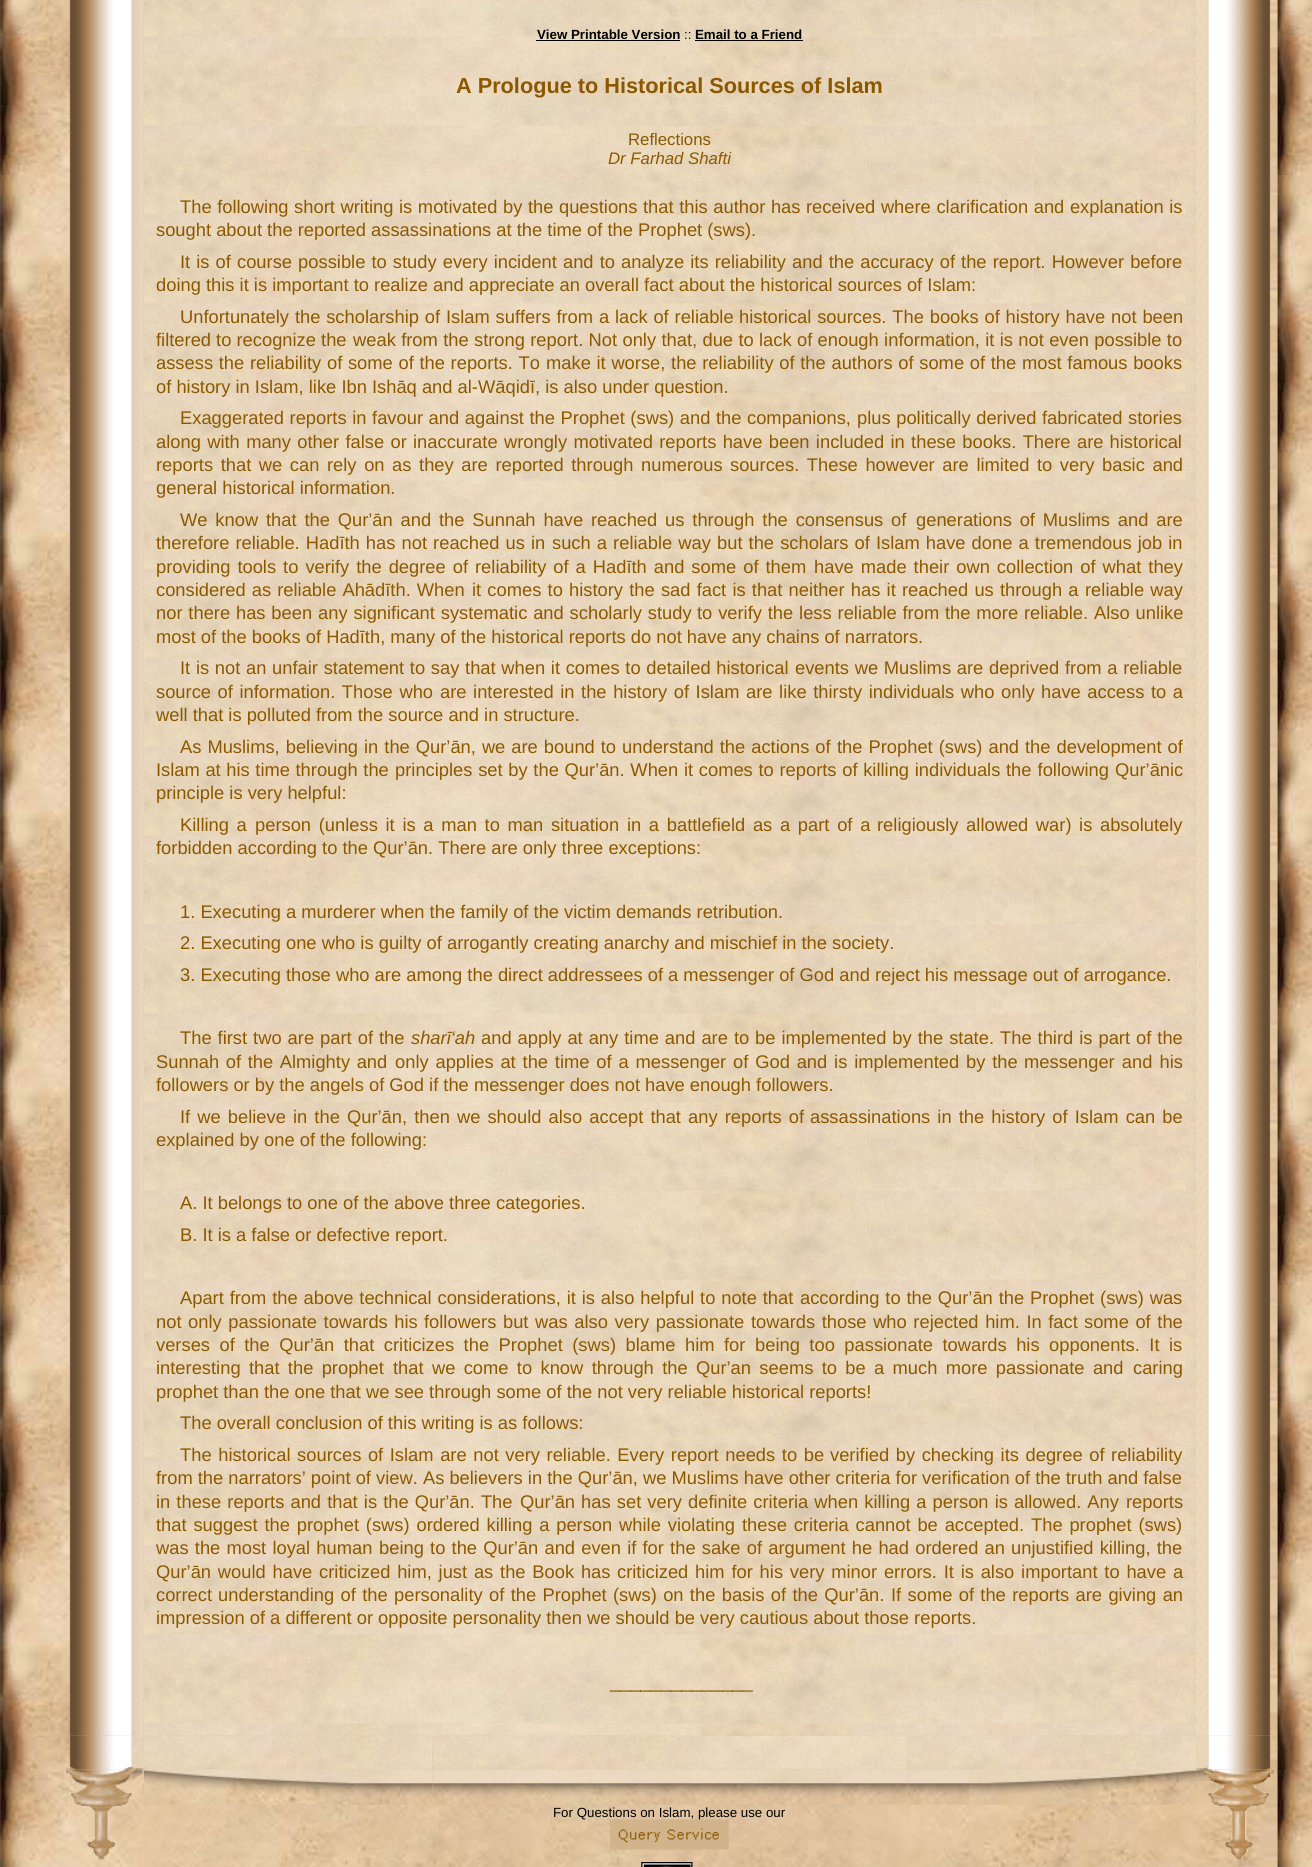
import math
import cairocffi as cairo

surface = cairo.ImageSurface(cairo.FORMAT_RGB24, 1312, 1867)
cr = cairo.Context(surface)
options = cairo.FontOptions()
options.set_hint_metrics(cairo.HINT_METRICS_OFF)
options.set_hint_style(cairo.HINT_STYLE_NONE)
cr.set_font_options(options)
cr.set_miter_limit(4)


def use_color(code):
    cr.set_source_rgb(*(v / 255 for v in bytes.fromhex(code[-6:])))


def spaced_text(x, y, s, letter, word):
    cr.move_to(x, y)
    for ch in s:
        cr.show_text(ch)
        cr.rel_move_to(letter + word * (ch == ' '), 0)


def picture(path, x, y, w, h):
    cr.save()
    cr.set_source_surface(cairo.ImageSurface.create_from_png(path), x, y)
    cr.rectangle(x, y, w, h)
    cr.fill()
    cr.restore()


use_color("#ffffff")
cr.paint()
picture("img1.png", 0, 0, 1312, 1867)
picture("img2.png", 69, 0, 75, 1736)
picture("img3.png", 144, 0, 1053, 1736)
cr.select_font_face("Liberation Sans", cairo.FONT_SLANT_NORMAL, cairo.FONT_WEIGHT_BOLD)
cr.set_font_size(13.3)
use_color("#000000")
cr.move_to(537, 39)
cr.show_text("View Printable Version")
cr.rectangle(536, 40, 144, 1)
cr.fill()
cr.select_font_face("Liberation Sans")
cr.move_to(684, 39)
cr.show_text("::")
cr.select_font_face("Liberation Sans", cairo.FONT_SLANT_NORMAL, cairo.FONT_WEIGHT_BOLD)
cr.move_to(695, 39)
cr.show_text("Email to a Friend")
cr.rectangle(695, 40, 108, 1)
cr.fill()
cr.set_font_size(21.7)
use_color("#8b5800")
cr.move_to(456, 93)
cr.show_text("A Prologue to Historical Sources of Islam")
cr.select_font_face("Liberation Sans")
cr.set_font_size(16.75)
cr.move_to(628, 145)
cr.show_text("Reflections")
cr.select_font_face("Liberation Sans", cairo.FONT_SLANT_ITALIC)
cr.move_to(608, 164)
cr.show_text("Dr Farhad Shafti")
cr.select_font_face("Liberation Sans")
cr.set_font_size(18.33)
spaced_text(180, 213, "The following short writing is motivated by the questions that this author has", 0, 0.5)
spaced_text(806, 213, "received where clarification and explanation is", 0, 0.5)
cr.move_to(156, 236)
cr.show_text("sought about the reported assassinations at the time of the Prophet (sws).")
spaced_text(180, 268, "It is of course possible to study every incident and to analyze its reliability", 0, 1)
spaced_text(792, 268, "and the accuracy of the report. However before", 0, 1)
cr.move_to(156, 291)
cr.show_text("doing this it is important to realize and appreciate an overall fact about the historical sources of Islam:")
spaced_text(180, 323, "Unfortunately the scholarship of Islam suffers from a lack of reliable", 0, 0.75)
spaced_text(739, 323, "historical sources. The books of history have not been", 0, 0.75)
cr.move_to(156, 346)
cr.show_text("filtered to recognize the")
spaced_text(353, 346, "weak from the strong report. Not only that, due to lack of enough information, it is not even possible to", 0, 0.25)
spaced_text(156, 369, "assess the reliability of some of the reports. To", 0, 0.6)
spaced_text(546, 369, "make it worse, the reliability of the authors of some of the most famous books", 0, 0.6)
cr.move_to(156, 393)
cr.show_text("of history in Islam, like Ibn Ishāq and al-Wāqidī, is also under question.")
spaced_text(180, 424, "Exaggerated reports in favour and against the Prophet (sws) and the companions,", 0, 0.5)
spaced_text(857, 424, "plus politically derived fabricated stories", 0, 0.5)
spaced_text(156, 448, "along with many other false or", 0, 1.25)
spaced_text(413, 448, "inaccurate wrongly motivated reports have been included in these books. There", 0, 1.25)
spaced_text(1077, 448, "are historical", 0, 1)
spaced_text(156, 471, "reports that we can rely on as they are reported through numerous", 0, 2.5)
spaced_text(730, 471, "sources. These however are limited to very basic and", 0, 2.5)
cr.move_to(156, 494)
cr.show_text("general historical information.")
spaced_text(180, 526, "We know that the Qur’ān and the Sunnah have reached us through the consensus of", 0, 2.75)
spaced_text(916, 526, "generations of Muslims and are", 0, 2.75)
spaced_text(156, 549, "therefore reliable. Hadīth has not reached us in", 0, 1)
spaced_text(552, 549, "such a reliable way but the scholars of Islam have done a tremendous job in", 0, 1)
spaced_text(156, 573, "providing tools to verify the degree of reliability of a Hadīth and some of them", 0, 1.9)
spaced_text(814, 573, "have made their own collection of what they", 0, 1.9)
spaced_text(156, 596, "considered as reliable Ahādīth. When", 0, 1)
spaced_text(472, 596, "it comes to history the sad fact is that neither has it reached us through a", 0, 1.1)
spaced_text(1085, 596, "reliable way", 0, 1)
spaced_text(156, 619, "nor there has been any significant systematic and scholarly study", 0, 0.75)
spaced_text(697, 619, "to verify the less reliable from the more reliable. Also unlike", 0, 0.75)
cr.move_to(156, 643)
cr.show_text("most of the books of Hadīth, many of the historical reports do not have any chains of narrators.")
spaced_text(180, 674, "It is not an unfair statement to say that when it comes to detailed historical", 0, 0.6)
spaced_text(795, 674, "events we Muslims are deprived from a reliable", 0, 0.6)
spaced_text(156, 698, "source of information. Those who", 0, 1.5)
spaced_text(440, 698, "are interested in the history of Islam are like thirsty individuals who only", 0, 1.5)
spaced_text(1041, 698, "have access to a", 0, 1.5)
cr.move_to(156, 721)
cr.show_text("well that is polluted from the source and in structure.")
spaced_text(180, 753, "As Muslims, believing in the Qur’ān, we are bound to understand the actions of", 0, 0.9)
spaced_text(837, 753, "the Prophet (sws) and the development of", 0, 0.9)
spaced_text(156, 776, "Islam at his time through the", 0, 0.5)
spaced_text(395, 776, "principles set by the Qur’ān. When it comes to reports of killing individuals", 0, 0.6)
spaced_text(1006, 776, "the following Qur’ānic", 0, 1)
cr.move_to(156, 799)
cr.show_text("principle is very helpful:")
spaced_text(180, 831, "Killing a", 0, 2.6)
spaced_text(255, 831, "person (unless it is a man to man situation in a battlefield as a part of a", 0, 2.6)
spaced_text(877, 831, "religiously allowed war) is absolutely", 0, 2.5)
cr.move_to(156, 854)
cr.show_text("forbidden according to the Qur’ān. There are only three exceptions:")
cr.move_to(180, 918)
cr.show_text("1. Executing a murderer when the family of the victim demands retribution.")
cr.move_to(180, 949)
cr.show_text("2. Executing one who is guilty of arrogantly creating anarchy and mischief in the society.")
cr.move_to(180, 981)
cr.show_text("3. Executing those who are among the direct addressees of a messenger of God and reject his message out of arrogance.")
spaced_text(180, 1044, "The first two are part of the", 0, 0.9)
cr.select_font_face("Liberation Sans", cairo.FONT_SLANT_ITALIC)
cr.move_to(411, 1044)
cr.show_text("sharī‘ah")
cr.select_font_face("Liberation Sans")
spaced_text(481, 1044, "and apply at any time and are to", 0, 0.9)
spaced_text(755, 1044, "be implemented by the state. The third is part of the", 0, 0.9)
spaced_text(156, 1068, "Sunnah of the Almighty and", 0, 1.5)
spaced_text(395, 1068, "only applies at the time of a messenger of God and is implemented by the", 0, 1.75)
spaced_text(1024, 1068, "messenger and his", 0, 2)
cr.move_to(156, 1091)
cr.show_text("followers or by the angels of God if the messenger does not")
cr.move_to(645, 1091)
cr.show_text("have enough followers.")
spaced_text(180, 1123, "If we believe in the Qur’ān, then we should also accept that any reports of", 0, 2)
spaced_text(810, 1123, "assassinations in the history of Islam can be", 0, 2)
cr.move_to(156, 1146)
cr.show_text("explained by one of the following:")
cr.move_to(180, 1209)
cr.show_text("A. It belongs to one of the above three categories.")
cr.move_to(180, 1241)
cr.show_text("B. It is a false or defective report.")
spaced_text(180, 1304, "Apart from the above technical considerations, it is also helpful to note that", 0, 0.75)
spaced_text(800, 1304, "according to the Qur’ān the Prophet (sws) was", 0, 0.75)
spaced_text(156, 1328, "not only passionate towards his", 0, 1.5)
spaced_text(424, 1328, "followers but was also very passionate towards those who rejected him. In fact", 0, 1.5)
spaced_text(1084, 1328, "some of the", 0, 1.5)
spaced_text(156, 1351, "verses of the Qur’ān that criticizes the Prophet (sws) blame him for", 0, 4.4)
spaced_text(755, 1351, "being too passionate towards his opponents. It is", 0, 4.4)
spaced_text(156, 1374, "interesting that the prophet", 0, 3.25)
spaced_text(393, 1374, "that we come to know through the Qur’an seems to be a much more passionate and", 0, 3.25)
cr.move_to(1133, 1374)
cr.show_text("caring")
cr.move_to(156, 1398)
cr.show_text("prophet than the one that we see through some of the not very reliable historical reports!")
cr.move_to(180, 1429)
cr.show_text("The overall conclusion of this writing is as follows:")
spaced_text(180, 1461, "The historical sources of Islam are not very reliable. Every report needs to be", 0, 1.5)
spaced_text(830, 1461, "verified by checking its degree of reliability", 0, 1.5)
cr.move_to(156, 1484)
cr.show_text("from the narrators’ point of view. As believers in the Qur’ān, we Muslims have other criteria for verification of the truth and false")
spaced_text(156, 1508, "in these reports and that is the Qur’ān. The", 0, 1)
spaced_text(520, 1508, "Qur’ān has set very definite criteria when killing a person is allowed. Any", 0, 1)
cr.move_to(1126, 1508)
cr.show_text("reports")
spaced_text(156, 1531, "that suggest the prophet (sws) ordered killing a person while violating", 0, 1.75)
spaced_text(742, 1531, "these criteria cannot be accepted. The prophet (sws)", 0, 1.75)
spaced_text(156, 1554, "was the most loyal human", 0, 1.1)
spaced_text(379, 1554, "being to the Qur’ān and even if for the sake of argument he had ordered an", 0, 1.1)
spaced_text(1011, 1554, "unjustified killing, the", 0, 1)
spaced_text(156, 1578, "Qur’ān would have criticized him, just as the Book has", 0, 1.7)
spaced_text(617, 1578, "criticized him for his very minor errors. It is also important to have a", 0, 1.7)
cr.move_to(156, 1601)
cr.show_text("correct")
spaced_text(218, 1601, "understanding of the personality of the Prophet (sws) on the basis of the Qur’ān.", 0, 1.25)
spaced_text(891, 1601, "If some of the reports are giving an", 0, 1.25)
cr.move_to(156, 1624)
cr.show_text("impression of a different or opposite personality then we should be very cautious about those reports.")
cr.move_to(610, 1688)
cr.show_text("______________")
picture("img4.png", 1196, 0, 75, 1736)
picture("img6.png", 143, 1735, 290, 35)
picture("img7.png", 432, 1735, 476, 35)
picture("img11.png", 143, 1769, 290, 36)
picture("img5.png", 66, 1735, 78, 35)
picture("img8.png", 907, 1735, 290, 35)
picture("img13.png", 432, 1769, 476, 36)
picture("img15.png", 907, 1769, 290, 36)
picture("img9.png", 1196, 1735, 75, 35)
picture("img10.png", 66, 1769, 77, 91)
picture("img12.png", 143, 1769, 257, 36)
cr.set_font_size(13.3)
use_color("#000000")
cr.move_to(553, 1817)
cr.show_text("For Questions on Islam, please use our")
picture("img14.png", 610, 1819, 119, 31)
picture("img16.png", 969, 1769, 228, 36)
picture("img17.png", 1196, 1769, 78, 92)
picture("img18.png", 641, 1862, 52, 5)
surface.write_to_png("result.png")
